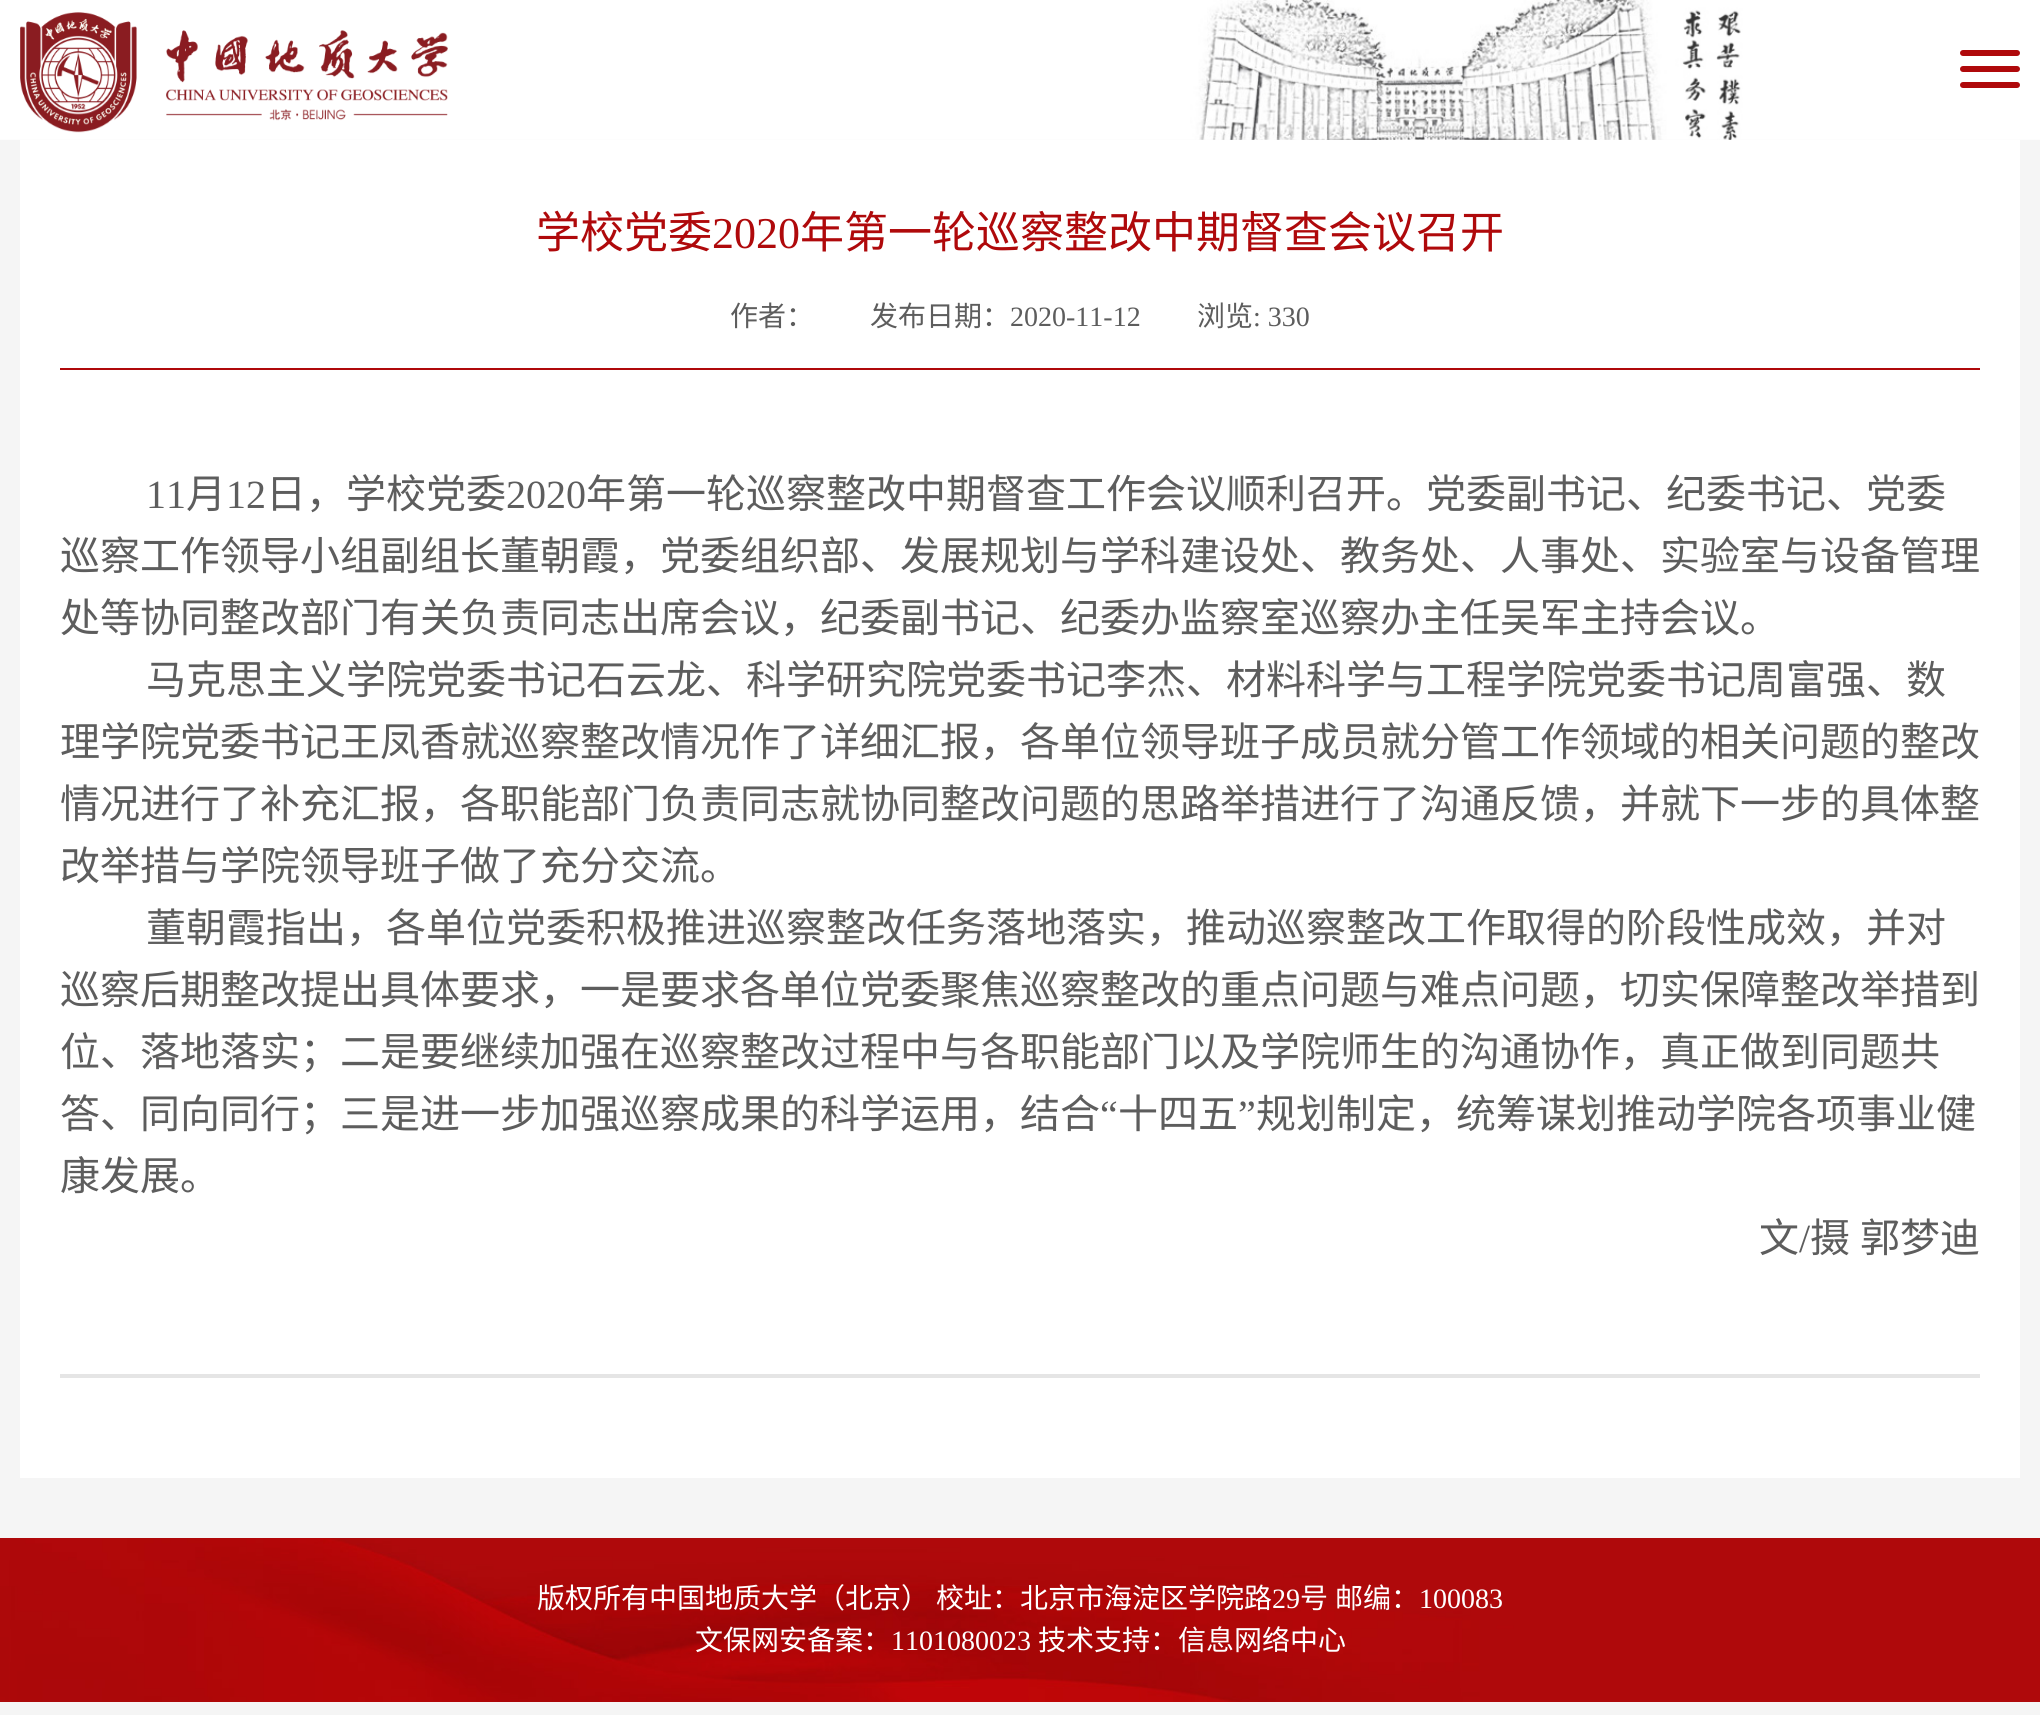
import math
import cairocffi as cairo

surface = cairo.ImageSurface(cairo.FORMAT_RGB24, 2040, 1715)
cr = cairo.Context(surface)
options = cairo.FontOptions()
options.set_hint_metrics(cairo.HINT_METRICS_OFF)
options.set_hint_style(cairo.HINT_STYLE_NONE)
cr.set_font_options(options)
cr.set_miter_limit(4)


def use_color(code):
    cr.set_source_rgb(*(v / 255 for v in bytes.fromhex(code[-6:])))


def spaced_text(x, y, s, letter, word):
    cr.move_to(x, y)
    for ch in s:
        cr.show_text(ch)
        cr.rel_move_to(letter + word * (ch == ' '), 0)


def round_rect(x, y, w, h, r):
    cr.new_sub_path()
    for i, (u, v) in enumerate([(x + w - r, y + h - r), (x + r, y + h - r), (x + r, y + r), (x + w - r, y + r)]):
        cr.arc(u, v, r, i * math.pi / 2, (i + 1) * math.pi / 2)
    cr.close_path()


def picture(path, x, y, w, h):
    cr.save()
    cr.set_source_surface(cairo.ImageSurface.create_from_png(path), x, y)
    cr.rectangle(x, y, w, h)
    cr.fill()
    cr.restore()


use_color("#f5f5f5")
cr.paint()
picture("img1.png", 0, 0, 2040, 140)
picture("img2.png", 20, 12, 428, 121)
use_color("#af090b")
round_rect(1960, 50, 60, 6, 3)
cr.fill()
round_rect(1960, 66, 60, 6, 3)
cr.fill()
round_rect(1960, 82, 60, 6, 3)
cr.fill()
use_color("#ffffff")
cr.rectangle(20, 140, 2000, 1338)
cr.fill()
cr.select_font_face("Noto Sans CJK SC")
cr.set_font_size(44)
use_color("#af090b")
cr.move_to(536, 248)
cr.show_text("学校党委")
cr.select_font_face("Liberation Serif")
cr.move_to(712, 248)
cr.show_text("2020")
cr.select_font_face("Noto Sans CJK SC")
cr.move_to(800, 248)
cr.show_text("年第一轮巡察整改中期督查会议召开")
cr.rectangle(60, 368, 1920, 2)
cr.fill()
cr.set_font_size(28)
use_color("#5d5d5d")
cr.move_to(730, 326)
cr.show_text("作者：")
cr.move_to(870, 326)
cr.show_text("发布日期：")
cr.select_font_face("Liberation Serif")
cr.move_to(1010, 326)
cr.show_text("2020-11-12")
cr.select_font_face("Noto Sans CJK SC")
cr.move_to(1197, 326)
cr.show_text("浏览")
cr.select_font_face("Liberation Serif")
cr.move_to(1253, 326)
cr.show_text(": 330")
use_color("#e5e5e5")
cr.rectangle(60, 1374, 1920, 4)
cr.fill()
cr.set_font_size(40)
use_color("#5d5d5d")
cr.move_to(146, 508)
cr.show_text("11")
cr.select_font_face("Noto Sans CJK SC")
cr.move_to(186, 508)
cr.show_text("月")
cr.select_font_face("Liberation Serif")
cr.move_to(226, 508)
cr.show_text("12")
cr.select_font_face("Noto Sans CJK SC")
cr.move_to(266, 508)
cr.show_text("日，学校党委")
cr.select_font_face("Liberation Serif")
cr.move_to(506, 508)
cr.show_text("2020")
cr.select_font_face("Noto Sans CJK SC")
cr.move_to(586, 508)
cr.show_text("年第一轮巡察整改中期督查工作会议顺利召开。党委副书记、纪委书记、党委")
cr.move_to(60, 570)
cr.show_text("巡察工作领导小组副组长董朝霞，党委组织部、发展规划与学科建设处、教务处、人事处、实验室与设备管理")
cr.move_to(60, 632)
cr.show_text("处等协同整改部门有关负责同志出席会议，纪委副书记、纪委办监察室巡察办主任吴军主持会议。")
cr.move_to(146, 694)
cr.show_text("马克思主义学院党委书记石云龙、科学研究院党委书记李杰、材料科学与工程学院党委书记周富强、数")
cr.move_to(60, 756)
cr.show_text("理学院党委书记王凤香就巡察整改情况作了详细汇报，各单位领导班子成员就分管工作领域的相关问题的整改")
cr.move_to(60, 818)
cr.show_text("情况进行了补充汇报，各职能部门负责同志就协同整改问题的思路举措进行了沟通反馈，并就下一步的具体整")
cr.move_to(60, 880)
cr.show_text("改举措与学院领导班子做了充分交流。")
cr.move_to(146, 942)
cr.show_text("董朝霞指出，各单位党委积极推进巡察整改任务落地落实，推动巡察整改工作取得的阶段性成效，并对")
cr.move_to(60, 1004)
cr.show_text("巡察后期整改提出具体要求，一是要求各单位党委聚焦巡察整改的重点问题与难点问题，切实保障整改举措到")
cr.move_to(60, 1066)
cr.show_text("位、落地落实；二是要继续加强在巡察整改过程中与各职能部门以及学院师生的沟通协作，真正做到同题共")
cr.move_to(60, 1128)
cr.show_text("答、同向同行；三是进一步加强巡察成果的科学运用，结合")
cr.select_font_face("Liberation Serif")
cr.move_to(1100, 1128)
cr.show_text("“")
cr.select_font_face("Noto Sans CJK SC")
cr.move_to(1118, 1128)
cr.show_text("十四五")
cr.select_font_face("Liberation Serif")
cr.move_to(1238, 1128)
cr.show_text("”")
cr.select_font_face("Noto Sans CJK SC")
cr.move_to(1256, 1128)
cr.show_text("规划制定，统筹谋划推动学院各项事业健")
cr.move_to(60, 1190)
cr.show_text("康发展。")
cr.move_to(1759, 1252)
cr.show_text("文")
cr.select_font_face("Liberation Serif")
cr.move_to(1799, 1252)
cr.show_text("/")
cr.select_font_face("Noto Sans CJK SC")
spaced_text(1810, 1252, "摄 郭梦迪", 0, 1)
picture("img3.png", 0, 1538, 2040, 164)
cr.set_font_size(28)
use_color("#ffffff")
cr.move_to(537, 1608)
cr.show_text("版权所有中国地质大学（北京）")
cr.move_to(936, 1608)
cr.show_text("校址：北京市海淀区学院路")
cr.select_font_face("Liberation Serif")
cr.move_to(1272, 1608)
cr.show_text("29")
cr.select_font_face("Noto Sans CJK SC")
cr.move_to(1300, 1608)
cr.show_text("号")
cr.move_to(1335, 1608)
cr.show_text("邮编：")
cr.select_font_face("Liberation Serif")
cr.move_to(1419, 1608)
cr.show_text("100083")
cr.select_font_face("Noto Sans CJK SC")
cr.move_to(695, 1650)
cr.show_text("文保网安备案：")
cr.select_font_face("Liberation Serif")
cr.move_to(891, 1650)
cr.show_text("1101080023")
cr.select_font_face("Noto Sans CJK SC")
cr.move_to(1038, 1650)
cr.show_text("技术支持：信息网络中心")
surface.write_to_png("result.png")
